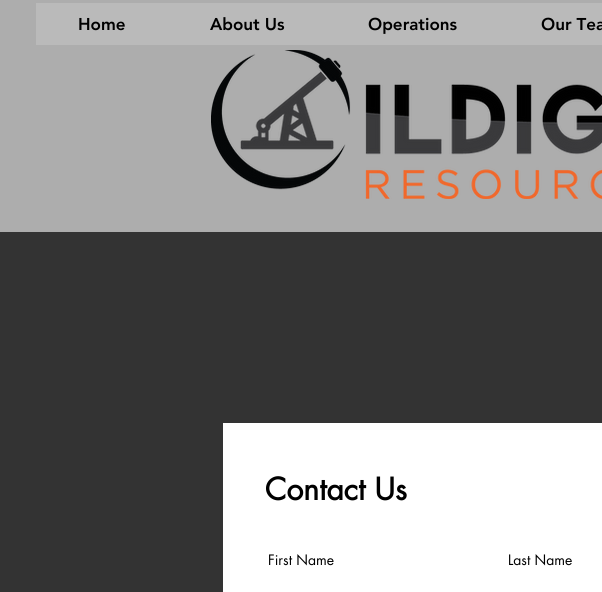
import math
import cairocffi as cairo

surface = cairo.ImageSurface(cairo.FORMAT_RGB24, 602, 592)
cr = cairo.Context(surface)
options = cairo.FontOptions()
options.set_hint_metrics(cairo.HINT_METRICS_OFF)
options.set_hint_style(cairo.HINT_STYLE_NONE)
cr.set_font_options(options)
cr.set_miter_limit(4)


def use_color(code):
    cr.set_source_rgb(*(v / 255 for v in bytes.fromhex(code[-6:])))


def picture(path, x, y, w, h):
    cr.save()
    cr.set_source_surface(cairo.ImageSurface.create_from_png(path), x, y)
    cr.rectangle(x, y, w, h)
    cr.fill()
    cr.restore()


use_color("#333333")
cr.paint()
use_color("#adadad")
cr.rectangle(0, 0, 602, 232)
cr.fill()
use_color("#bababa")
cr.rectangle(36, 3, 566, 42)
cr.fill()
cr.select_font_face("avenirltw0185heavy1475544 Black")
cr.set_font_size(17)
use_color("#000000")
cr.move_to(78, 30)
cr.show_text("Home")
cr.move_to(210, 30)
cr.show_text("About Us")
cr.move_to(368, 30)
cr.show_text("Operations")
cr.move_to(541, 30)
cr.show_text("Our Tea")
picture("img1.png", 211, 50, 391, 149)
use_color("#ffffff")
cr.rectangle(223, 423, 379, 169)
cr.fill()
cr.select_font_face("futura", cairo.FONT_SLANT_NORMAL, cairo.FONT_WEIGHT_BOLD)
cr.set_font_size(30)
use_color("#000000")
cr.move_to(265, 500)
cr.show_text("Contact Us")
cr.select_font_face("futura")
cr.set_font_size(14)
cr.move_to(268, 565)
cr.show_text("First Name")
cr.move_to(508, 565)
cr.show_text("Last Name")
surface.write_to_png("result.png")
